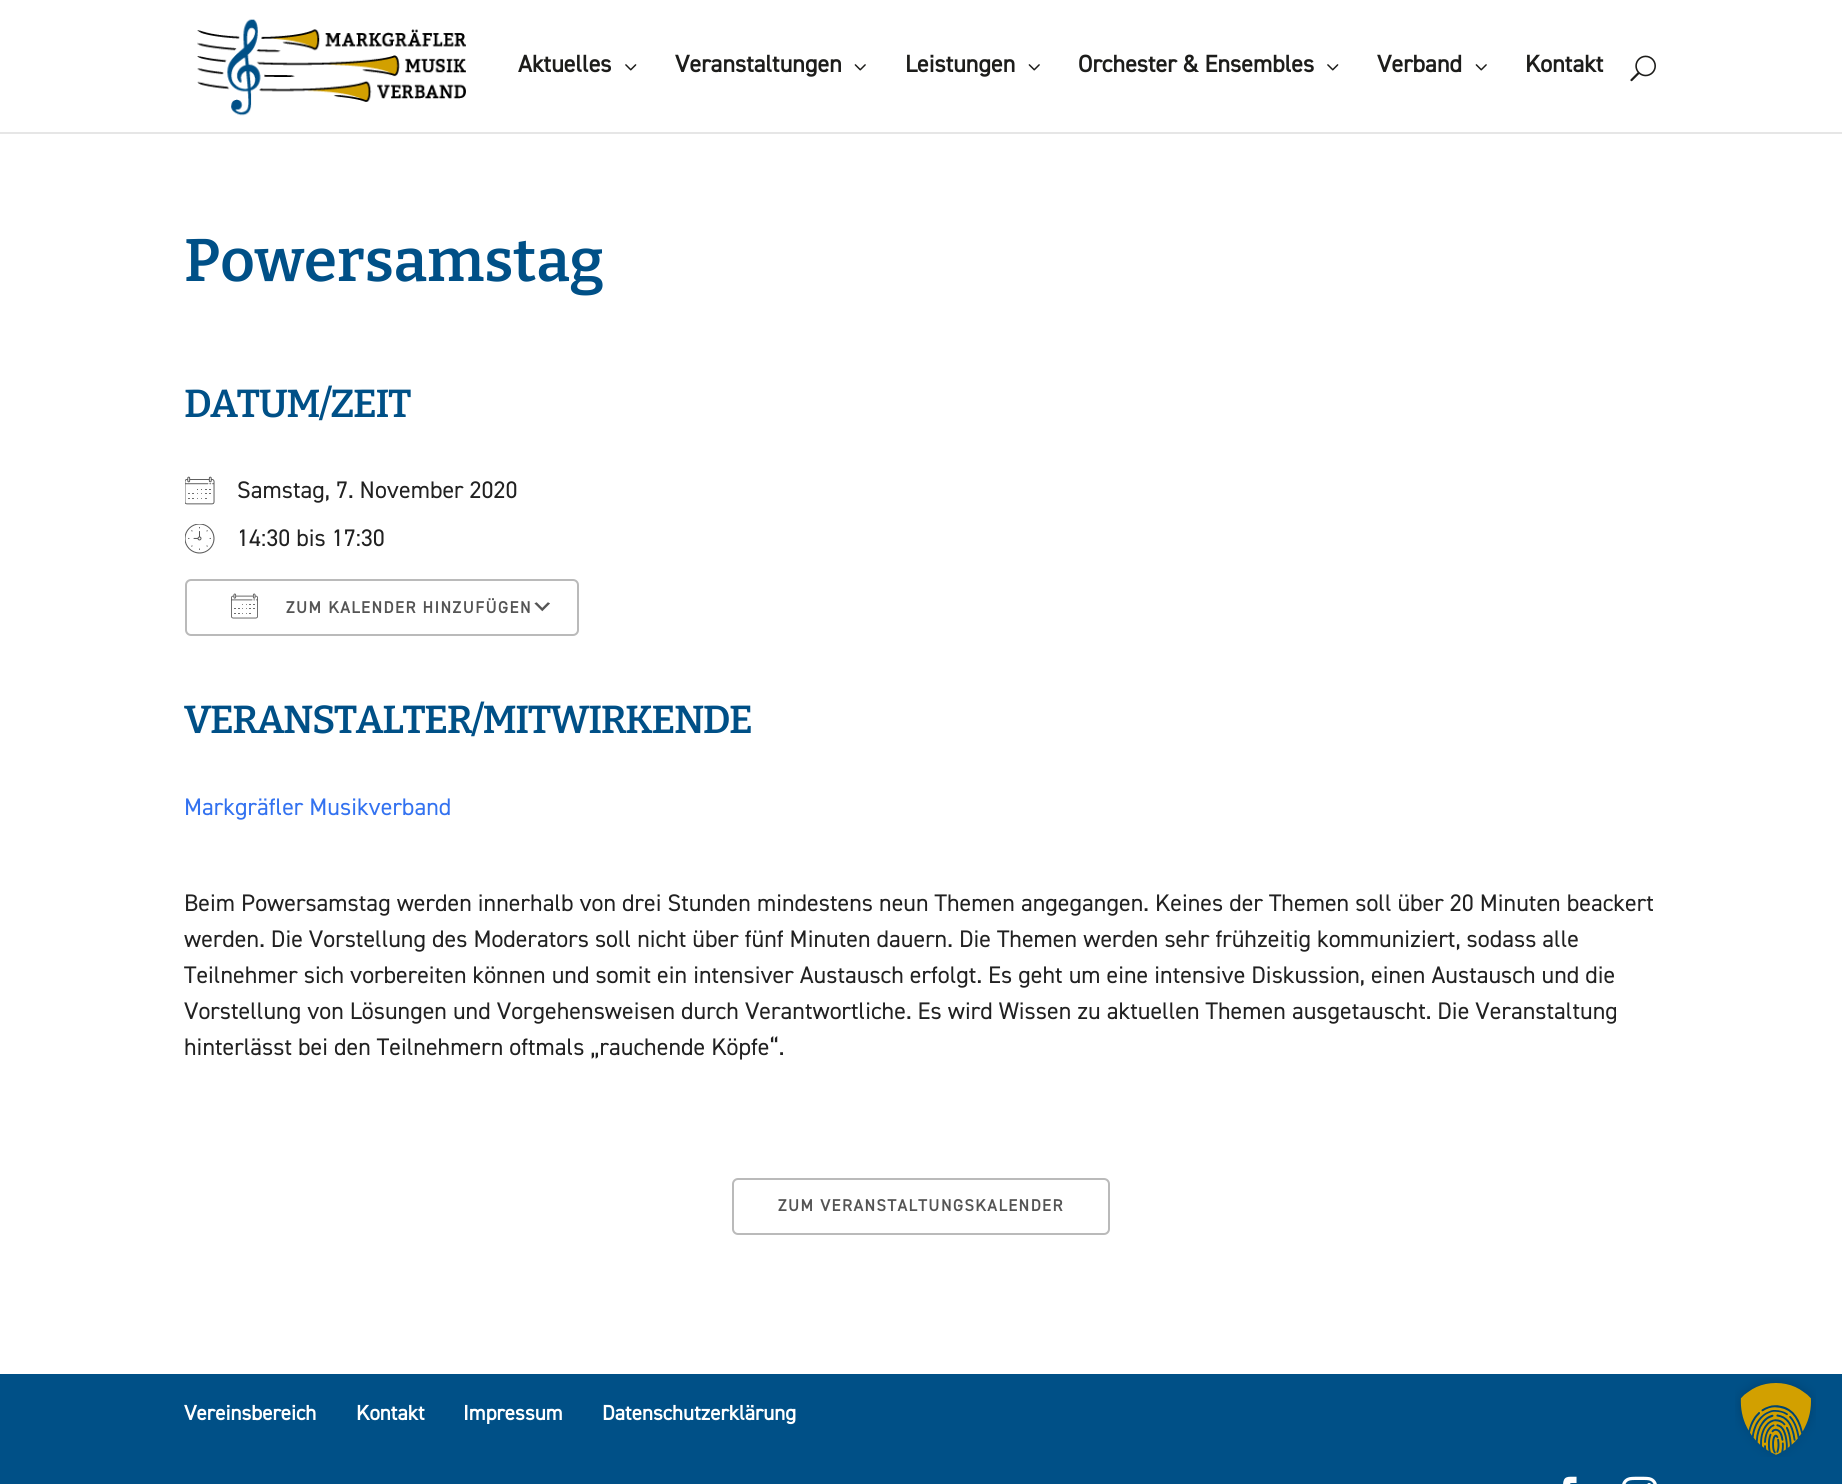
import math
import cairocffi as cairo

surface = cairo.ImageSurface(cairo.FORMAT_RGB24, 1842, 1484)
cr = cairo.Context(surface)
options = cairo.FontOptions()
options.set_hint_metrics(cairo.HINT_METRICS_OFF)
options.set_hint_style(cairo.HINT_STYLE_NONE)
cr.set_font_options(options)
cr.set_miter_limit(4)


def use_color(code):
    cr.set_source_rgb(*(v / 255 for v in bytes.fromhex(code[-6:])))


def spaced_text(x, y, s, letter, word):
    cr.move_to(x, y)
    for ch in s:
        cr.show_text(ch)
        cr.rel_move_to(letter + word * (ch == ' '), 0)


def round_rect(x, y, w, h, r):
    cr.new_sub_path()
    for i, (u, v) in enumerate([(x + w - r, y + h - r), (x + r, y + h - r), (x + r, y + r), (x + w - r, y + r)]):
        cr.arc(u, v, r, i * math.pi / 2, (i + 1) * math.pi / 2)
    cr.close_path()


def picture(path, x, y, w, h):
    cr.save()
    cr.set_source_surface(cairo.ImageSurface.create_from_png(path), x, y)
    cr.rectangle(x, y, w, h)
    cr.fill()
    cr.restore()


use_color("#ffffff")
cr.paint()
use_color("#e6e6e6")
cr.rectangle(0, 132, 1842, 2)
cr.fill()
picture("img1.png", 197, 19, 269, 97)
cr.select_font_face("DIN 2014", cairo.FONT_SLANT_NORMAL, cairo.FONT_WEIGHT_BOLD)
cr.set_font_size(24)
use_color("#1d1d1b")
cr.move_to(518, 72)
cr.show_text("Aktuelles")
picture("img2.png", 625, 64, 12, 7)
cr.move_to(675, 72)
cr.show_text("Veranstaltungen")
picture("img3.png", 854, 64, 12, 7)
cr.move_to(905, 72)
cr.show_text("Leistungen")
picture("img3.png", 1028, 64, 12, 7)
cr.move_to(1078, 72)
cr.show_text("Orchester & Ensembles")
picture("img2.png", 1327, 64, 12, 7)
cr.move_to(1377, 72)
cr.show_text("Verband")
picture("img3.png", 1475, 64, 12, 7)
cr.move_to(1525, 72)
cr.show_text("Kontakt")
picture("img4.png", 1630, 55, 26, 27)
cr.select_font_face("Bitter SemiBold")
cr.set_font_size(60)
use_color("#005087")
cr.move_to(184, 281)
cr.show_text("Powersamstag")
cr.set_font_size(39)
spaced_text(184, 417, "DATUM/ZEIT", -1.5, 0)
picture("img5.png", 185, 476, 30, 29)
cr.select_font_face("DIN 2014")
cr.set_font_size(24)
use_color("#212121")
cr.move_to(237, 498)
cr.show_text("Samstag, 7. November 2020")
picture("img6.png", 185, 524, 30, 30)
cr.move_to(237, 546)
cr.show_text("14:30 bis 17:30")
picture("img7.png", 534, 602, 16, 10)
round_rect(186, 580, 392, 55, 5)
use_color("#bababa")
cr.stroke()
picture("img8.png", 231, 593, 27, 26)
cr.select_font_face("DIN 2014", cairo.FONT_SLANT_NORMAL, cairo.FONT_WEIGHT_BOLD)
cr.set_font_size(16.5)
use_color("#545454")
spaced_text(286, 613, "ZUM KALENDER HINZUFÜGEN", 1.5, 0)
cr.select_font_face("Bitter SemiBold")
cr.set_font_size(39)
use_color("#005087")
spaced_text(184, 733, "VERANSTALTER/MITWIRKENDE", -1.5, 0)
cr.select_font_face("DIN 2014")
cr.set_font_size(24)
use_color("#3372f0")
cr.move_to(184, 815)
cr.show_text("Markgräfler Musikverband")
use_color("#212121")
cr.move_to(184, 911)
cr.show_text("Beim Powersamstag werden innerhalb von drei Stunden mindestens neun Themen angegangen. Keines der Themen soll über 20 Minuten beackert")
cr.move_to(184, 947)
cr.show_text("werden. Die Vorstellung des Moderators soll nicht über fünf Minuten dauern. Die Themen werden sehr frühzeitig kommuniziert, sodass alle")
cr.move_to(184, 983)
cr.show_text("Teilnehmer sich vorbereiten können und somit ein intensiver Austausch erfolgt. Es geht um eine intensive Diskussion, einen Austausch und die")
cr.move_to(184, 1019)
cr.show_text("Vorstellung von Lösungen und Vorgehensweisen durch Verantwortliche. Es wird Wissen zu aktuellen Themen ausgetauscht. Die Veranstaltung")
cr.move_to(184, 1055)
cr.show_text("hinterlässt bei den Teilnehmern oftmals „rauchende Köpfe“.")
round_rect(733, 1179, 376, 55, 5)
use_color("#bababa")
cr.stroke()
cr.select_font_face("DIN 2014", cairo.FONT_SLANT_NORMAL, cairo.FONT_WEIGHT_BOLD)
cr.set_font_size(16.5)
use_color("#545454")
spaced_text(778, 1211, "ZUM VERANSTALTUNGSKALENDER", 1.5, 0)
use_color("#005087")
cr.rectangle(0, 1374, 1842, 110)
cr.fill()
cr.set_font_size(21)
use_color("#ffffff")
cr.move_to(184, 1420)
cr.show_text("Vereinsbereich")
cr.move_to(356, 1420)
cr.show_text("Kontakt")
cr.move_to(463, 1420)
cr.show_text("Impressum")
cr.move_to(602, 1420)
cr.show_text("Datenschutzerklärung")
picture("img9.png", 1563, 1476, 14, 8)
picture("img10.png", 1622, 1476, 35, 8)
picture("img11.png", 1735, 1377, 81, 80)
surface.write_to_png("result.png")
